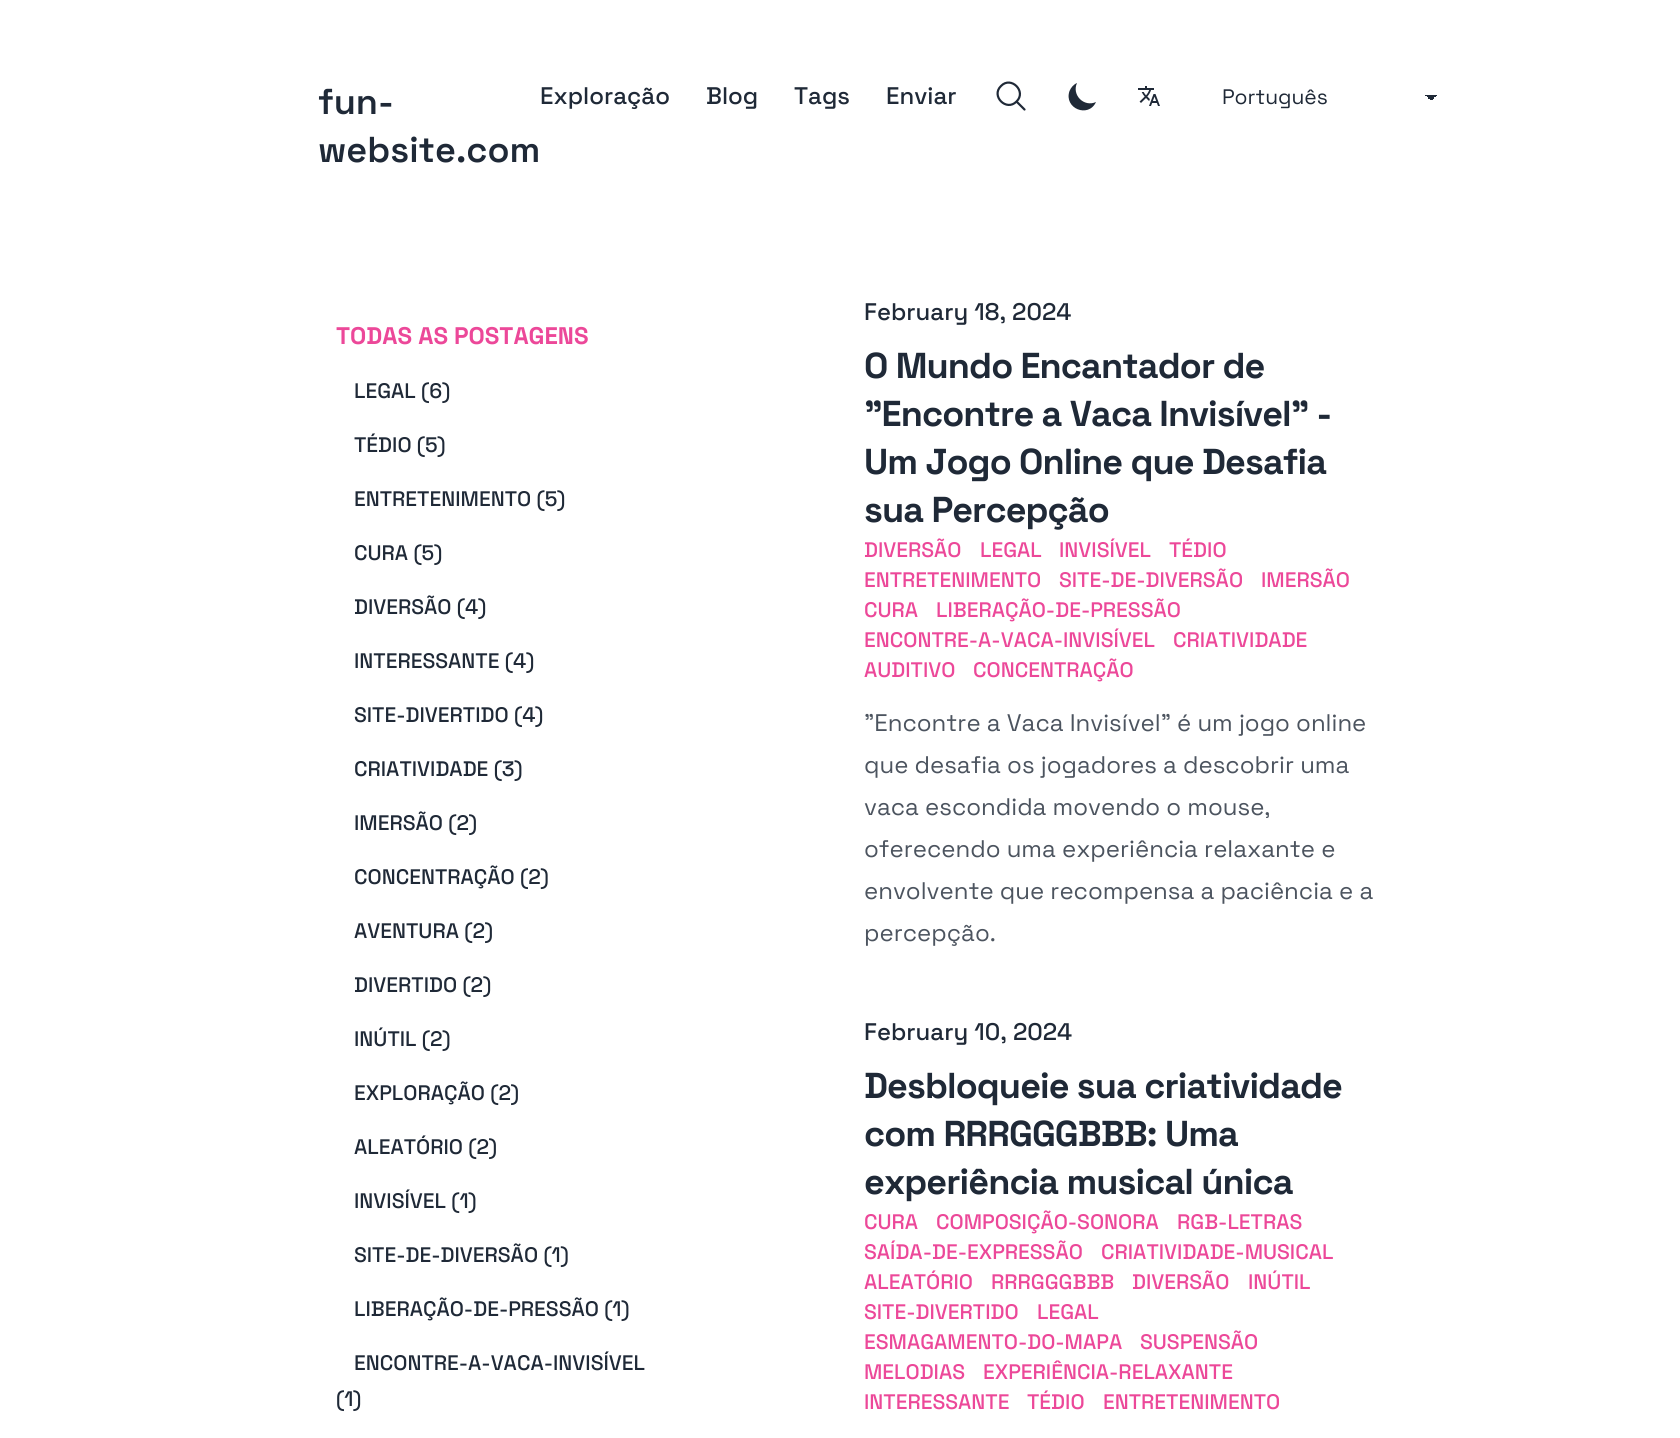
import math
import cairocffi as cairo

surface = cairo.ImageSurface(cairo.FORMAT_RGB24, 1680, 1438)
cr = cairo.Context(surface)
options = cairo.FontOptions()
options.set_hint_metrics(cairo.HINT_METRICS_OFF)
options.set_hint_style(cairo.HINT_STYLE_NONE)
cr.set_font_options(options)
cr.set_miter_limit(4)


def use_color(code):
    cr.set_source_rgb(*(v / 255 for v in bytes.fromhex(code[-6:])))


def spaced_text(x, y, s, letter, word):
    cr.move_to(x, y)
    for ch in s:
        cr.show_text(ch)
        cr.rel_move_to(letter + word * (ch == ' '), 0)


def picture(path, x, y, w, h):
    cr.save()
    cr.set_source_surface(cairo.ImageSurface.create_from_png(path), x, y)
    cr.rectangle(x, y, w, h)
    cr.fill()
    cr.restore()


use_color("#ffffff")
cr.paint()
cr.select_font_face("Space Grotesk SemiBold")
cr.set_font_size(36)
use_color("#1f2937")
cr.move_to(318, 114)
cr.show_text("fun-")
cr.move_to(318, 162)
cr.show_text("website.com")
cr.select_font_face("Space Grotesk Medium")
cr.set_font_size(24)
cr.move_to(540, 104)
cr.show_text("Exploração")
cr.move_to(706, 104)
cr.show_text("Blog")
cr.move_to(794, 104)
cr.show_text("Tags")
cr.move_to(886, 104)
cr.show_text("Enviar")
cr.new_path()
cr.move_to(1024.5, 109.5)
cr.line_to(1016.5, 101.5)
cr.move_to(1016.5, 101.5)
cr.curve_to(1027, 91.5, 1011, 75.5, 1001, 86)
cr.curve_to(990.5, 96, 1006.5, 112, 1016.5, 101.5)
cr.close_path()
cr.set_line_width(2.2)
cr.set_line_cap(cairo.LINE_CAP_ROUND)
cr.set_line_join(cairo.LINE_JOIN_ROUND)
cr.stroke()
cr.new_path()
cr.move_to(1096, 102)
cr.curve_to(1084, 107.5, 1071.5, 95, 1077, 83)
cr.curve_to(1073.5, 84.5, 1071, 87.5, 1069.5, 91)
cr.curve_to(1063.5, 108.5, 1088.5, 118.5, 1096, 102)
cr.close_path()
cr.fill()
picture("img1.png", 1138, 86, 22, 20)
gradient = cairo.LinearGradient(1431, 95, 1437, 101)
gradient.add_color_stop_rgba(0.5, 0.122, 0.161, 0.216, 1)
gradient.add_color_stop_rgba(0.5, 1, 1, 1, 1)
cr.set_source(gradient)
cr.rectangle(1431, 95, 6, 5)
cr.fill()
gradient = cairo.LinearGradient(1425, 101, 1431, 95)
gradient.add_color_stop_rgba(0.5, 1, 1, 1, 1)
gradient.add_color_stop_rgba(0.5, 0.122, 0.161, 0.216, 1)
cr.set_source(gradient)
cr.rectangle(1425, 95, 6, 5)
cr.fill()
cr.select_font_face("Space Grotesk")
cr.set_font_size(21)
use_color("#1f2937")
cr.move_to(1222, 104)
cr.show_text("Português")
cr.select_font_face("Space Grotesk", cairo.FONT_SLANT_NORMAL, cairo.FONT_WEIGHT_BOLD)
cr.set_font_size(24)
use_color("#ec4899")
cr.move_to(336, 344)
cr.show_text("TODAS AS POSTAGENS")
cr.select_font_face("Space Grotesk Medium")
cr.set_font_size(21)
use_color("#1f2937")
cr.move_to(354, 398)
cr.show_text("LEGAL (6)")
cr.move_to(354, 452)
cr.show_text("TÉDIO (5)")
cr.move_to(354, 506)
cr.show_text("ENTRETENIMENTO (5)")
cr.move_to(354, 560)
cr.show_text("CURA (5)")
cr.move_to(354, 614)
cr.show_text("DIVERSÃO (4)")
cr.move_to(354, 668)
cr.show_text("INTERESSANTE (4)")
cr.move_to(354, 722)
cr.show_text("SITE-DIVERTIDO (4)")
cr.move_to(354, 776)
cr.show_text("CRIATIVIDADE (3)")
cr.move_to(354, 830)
cr.show_text("IMERSÃO (2)")
cr.move_to(354, 884)
cr.show_text("CONCENTRAÇÃO (2)")
cr.move_to(354, 938)
cr.show_text("AVENTURA (2)")
cr.move_to(354, 992)
cr.show_text("DIVERTIDO (2)")
cr.move_to(354, 1046)
cr.show_text("INÚTIL (2)")
cr.move_to(354, 1100)
cr.show_text("EXPLORAÇÃO (2)")
cr.move_to(354, 1154)
cr.show_text("ALEATÓRIO (2)")
cr.move_to(354, 1208)
cr.show_text("INVISÍVEL (1)")
cr.move_to(354, 1262)
cr.show_text("SITE-DE-DIVERSÃO (1)")
cr.move_to(354, 1316)
cr.show_text("LIBERAÇÃO-DE-PRESSÃO (1)")
cr.move_to(354, 1370)
cr.show_text("ENCONTRE-A-VACA-INVISÍVEL")
cr.move_to(336, 1406)
cr.show_text("(1)")
cr.set_font_size(24)
cr.move_to(864, 320)
cr.show_text("February 18, 2024")
cr.select_font_face("Space Grotesk", cairo.FONT_SLANT_NORMAL, cairo.FONT_WEIGHT_BOLD)
cr.set_font_size(36)
spaced_text(864, 378, "O Mundo Encantador de", -0.9, 0)
spaced_text(864, 426, "\"Encontre a Vaca Invisível\" -", -0.9, 0)
spaced_text(864, 474, "Um Jogo Online que Desafia", -0.9, 0)
spaced_text(864, 522, "sua Percepção", -0.9, 0)
cr.select_font_face("Space Grotesk Medium")
cr.set_font_size(21)
use_color("#ec4899")
cr.move_to(864, 557)
cr.show_text("DIVERSÃO")
cr.move_to(980, 557)
cr.show_text("LEGAL")
cr.move_to(1059, 557)
cr.show_text("INVISÍVEL")
cr.move_to(1169, 557)
cr.show_text("TÉDIO")
cr.move_to(864, 587)
cr.show_text("ENTRETENIMENTO")
cr.move_to(1059, 587)
cr.show_text("SITE-DE-DIVERSÃO")
cr.move_to(1261, 587)
cr.show_text("IMERSÃO")
cr.move_to(864, 617)
cr.show_text("CURA")
cr.move_to(936, 617)
cr.show_text("LIBERAÇÃO-DE-PRESSÃO")
cr.move_to(864, 647)
cr.show_text("ENCONTRE-A-VACA-INVISÍVEL")
cr.move_to(1173, 647)
cr.show_text("CRIATIVIDADE")
cr.move_to(864, 677)
cr.show_text("AUDITIVO")
cr.move_to(973, 677)
cr.show_text("CONCENTRAÇÃO")
cr.select_font_face("Space Grotesk")
cr.set_font_size(24)
use_color("#4c545f")
cr.move_to(864, 731)
cr.show_text("\"Encontre a Vaca Invisível\" é um jogo online")
cr.move_to(864, 773)
cr.show_text("que desafia os jogadores a descobrir uma")
cr.move_to(864, 815)
cr.show_text("vaca escondida movendo o mouse,")
cr.move_to(864, 857)
cr.show_text("oferecendo uma experiência relaxante e")
cr.move_to(864, 899)
cr.show_text("envolvente que recompensa a paciência e a")
cr.move_to(864, 941)
cr.show_text("percepção.")
cr.select_font_face("Space Grotesk Medium")
use_color("#1f2937")
cr.move_to(864, 1040)
cr.show_text("February 10, 2024")
cr.select_font_face("Space Grotesk", cairo.FONT_SLANT_NORMAL, cairo.FONT_WEIGHT_BOLD)
cr.set_font_size(36)
spaced_text(864, 1098, "Desbloqueie sua criatividade", -0.9, 0)
spaced_text(864, 1146, "com RRRGGGBBB: Uma", -0.9, 0)
spaced_text(864, 1194, "experiência musical única", -0.9, 0)
cr.select_font_face("Space Grotesk Medium")
cr.set_font_size(21)
use_color("#ec4899")
cr.move_to(864, 1229)
cr.show_text("CURA")
cr.move_to(936, 1229)
cr.show_text("COMPOSIÇÃO-SONORA")
cr.move_to(1177, 1229)
cr.show_text("RGB-LETRAS")
cr.move_to(864, 1259)
cr.show_text("SAÍDA-DE-EXPRESSÃO")
cr.move_to(1101, 1259)
cr.show_text("CRIATIVIDADE-MUSICAL")
cr.move_to(864, 1289)
cr.show_text("ALEATÓRIO")
cr.move_to(991, 1289)
cr.show_text("RRRGGGBBB")
cr.move_to(1132, 1289)
cr.show_text("DIVERSÃO")
cr.move_to(1248, 1289)
cr.show_text("INÚTIL")
cr.move_to(864, 1319)
cr.show_text("SITE-DIVERTIDO")
cr.move_to(1037, 1319)
cr.show_text("LEGAL")
cr.move_to(864, 1349)
cr.show_text("ESMAGAMENTO-DO-MAPA")
cr.move_to(1140, 1349)
cr.show_text("SUSPENSÃO")
cr.move_to(864, 1379)
cr.show_text("MELODIAS")
cr.move_to(983, 1379)
cr.show_text("EXPERIÊNCIA-RELAXANTE")
cr.move_to(864, 1409)
cr.show_text("INTERESSANTE")
cr.move_to(1027, 1409)
cr.show_text("TÉDIO")
cr.move_to(1103, 1409)
cr.show_text("ENTRETENIMENTO")
surface.write_to_png("result.png")
